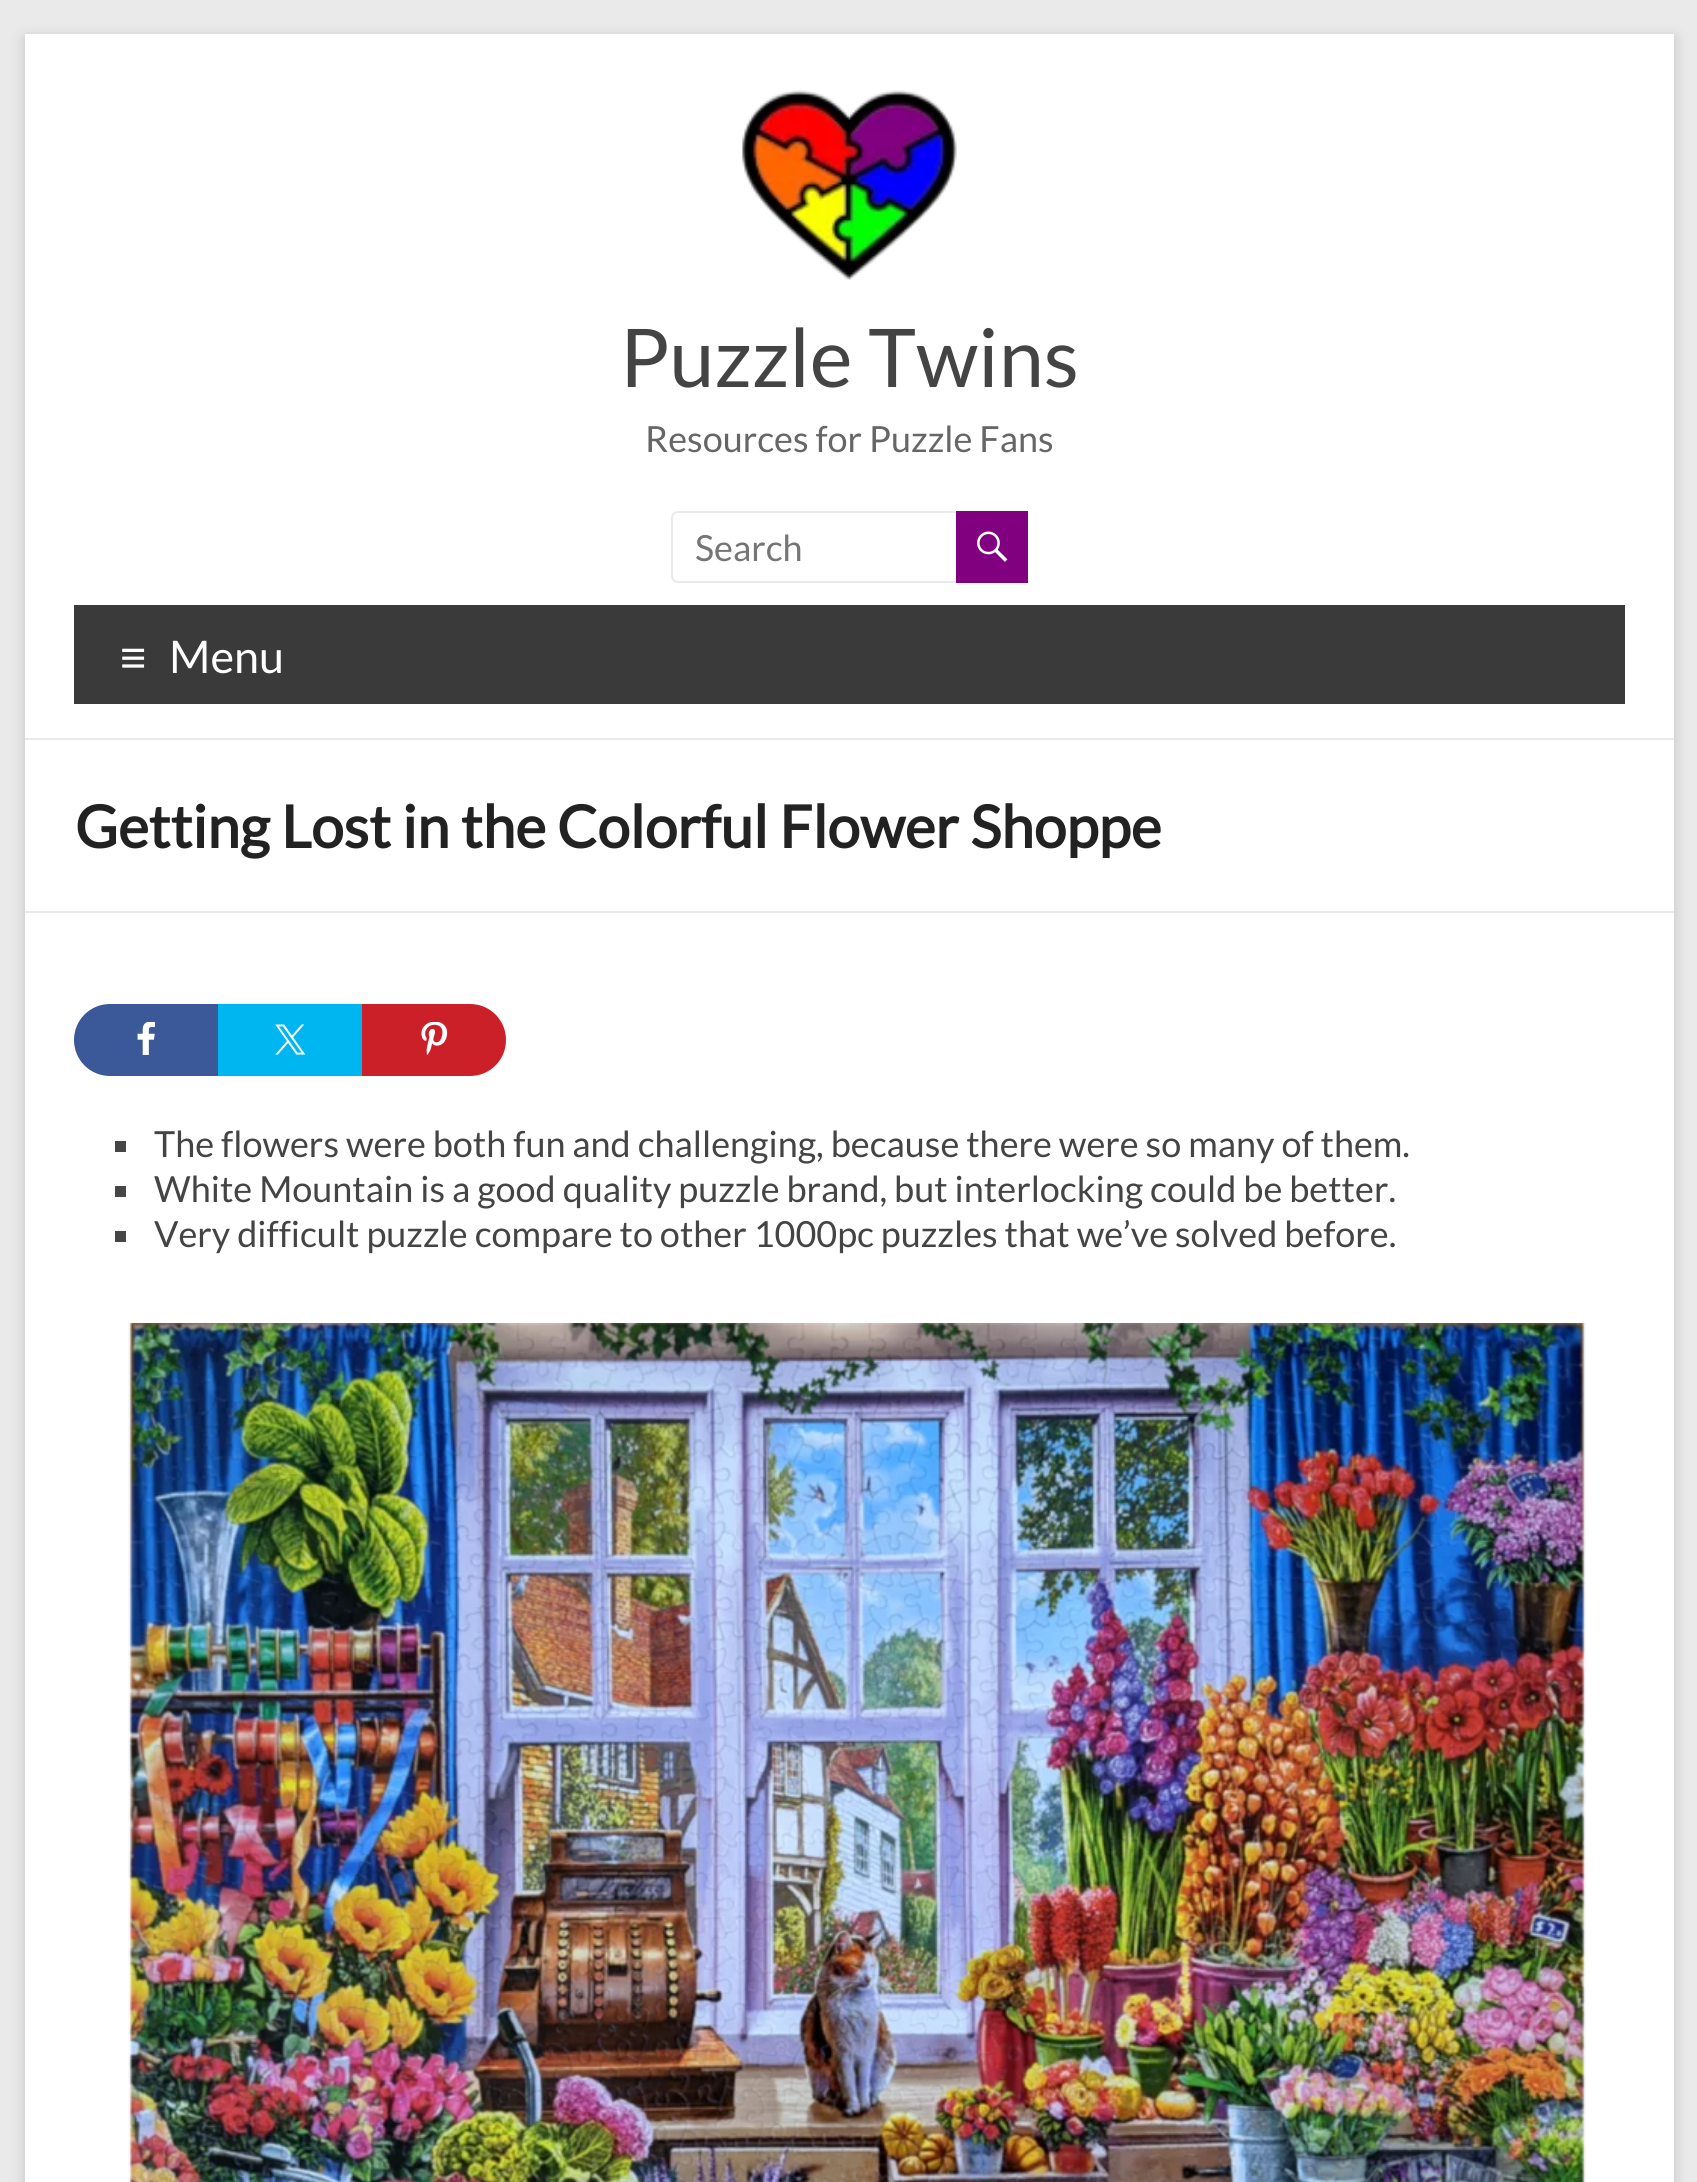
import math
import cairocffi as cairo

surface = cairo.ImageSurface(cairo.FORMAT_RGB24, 1697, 2182)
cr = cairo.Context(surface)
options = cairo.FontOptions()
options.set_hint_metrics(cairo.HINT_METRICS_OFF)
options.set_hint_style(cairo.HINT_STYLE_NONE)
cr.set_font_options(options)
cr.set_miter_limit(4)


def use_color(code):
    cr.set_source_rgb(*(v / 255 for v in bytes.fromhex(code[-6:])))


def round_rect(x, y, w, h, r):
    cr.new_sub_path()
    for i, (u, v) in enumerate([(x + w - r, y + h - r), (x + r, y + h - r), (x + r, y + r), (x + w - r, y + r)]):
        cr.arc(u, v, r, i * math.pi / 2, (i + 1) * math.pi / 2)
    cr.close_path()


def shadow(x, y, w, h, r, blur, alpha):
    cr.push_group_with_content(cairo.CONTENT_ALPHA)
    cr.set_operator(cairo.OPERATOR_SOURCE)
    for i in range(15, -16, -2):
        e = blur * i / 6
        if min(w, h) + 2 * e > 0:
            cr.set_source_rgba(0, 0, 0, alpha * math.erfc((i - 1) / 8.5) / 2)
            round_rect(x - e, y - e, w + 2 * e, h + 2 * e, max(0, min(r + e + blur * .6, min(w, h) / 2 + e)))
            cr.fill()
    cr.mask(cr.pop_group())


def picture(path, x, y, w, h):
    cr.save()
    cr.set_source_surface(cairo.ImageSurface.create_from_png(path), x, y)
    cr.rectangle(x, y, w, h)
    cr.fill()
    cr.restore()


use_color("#eaeaea")
cr.paint()
use_color("#646464")
shadow(25, 38, 1649, 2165, 0, 7, 0.3)
use_color("#ffffff")
cr.rectangle(25, 34, 1649, 2148)
cr.fill()
use_color("#eaeaea")
cr.rectangle(25, 738, 1649, 2)
cr.fill()
picture("img1.png", 742, 90, 215, 190)
cr.select_font_face("Lato")
cr.set_font_size(81)
use_color("#444444")
cr.move_to(620, 387)
cr.show_text("Puzzle Twins")
cr.set_font_size(36)
use_color("#666666")
cr.move_to(645, 452)
cr.show_text("Resources for Puzzle Fans")
round_rect(672, 512, 290, 70, 6)
use_color("#eaeaea")
cr.stroke()
use_color("#757575")
cr.move_to(695, 561)
cr.show_text("Search")
use_color("#800080")
cr.rectangle(956, 511, 72, 72)
cr.fill()
picture("img2.png", 977, 531, 31, 31)
use_color("#3a3a3a")
cr.rectangle(74, 605, 1551, 99)
cr.fill()
cr.select_font_face("Liberation Sans")
cr.set_font_size(45)
use_color("#ffffff")
cr.move_to(120, 673)
cr.show_text("≡")
cr.select_font_face("Lato")
cr.move_to(169, 673)
cr.show_text("Menu")
use_color("#eaeaea")
cr.rectangle(25, 911, 1649, 2)
cr.fill()
cr.select_font_face("Lato", cairo.FONT_SLANT_NORMAL, cairo.FONT_WEIGHT_BOLD)
cr.set_font_size(58.5)
use_color("#222222")
cr.move_to(75, 848)
cr.show_text("Getting Lost in the Colorful Flower Shoppe")
use_color("#3b5998")
cr.new_path()
cr.move_to(110, 1004)
cr.line_to(218, 1004)
cr.line_to(218, 1076)
cr.line_to(110, 1076)
cr.curve_to(90, 1076, 74, 1060, 74, 1040)
cr.curve_to(74, 1020, 90, 1004, 110, 1004)
cr.close_path()
cr.fill()
picture("img3.png", 137, 1022, 18, 33)
use_color("#00b6f1")
cr.rectangle(218, 1004, 144, 72)
cr.fill()
picture("img4.png", 275, 1024, 31, 31)
use_color("#cb2027")
cr.new_path()
cr.move_to(362, 1004)
cr.line_to(470, 1004)
cr.curve_to(490, 1004, 506, 1020, 506, 1040)
cr.curve_to(506, 1060, 490, 1076, 470, 1076)
cr.line_to(362, 1076)
cr.close_path()
cr.fill()
picture("img5.png", 421, 1022, 27, 33)
use_color("#464646")
cr.rectangle(115, 1141, 11, 11)
cr.fill()
cr.select_font_face("Lato")
cr.set_font_size(36)
use_color("#444444")
cr.move_to(154, 1157)
cr.show_text("The flowers were both fun and challenging, because there were so many of them.")
use_color("#464646")
cr.rectangle(115, 1186, 11, 11)
cr.fill()
use_color("#444444")
cr.move_to(154, 1202)
cr.show_text("White Mountain is a good quality puzzle brand, but interlocking could be better.")
use_color("#464646")
cr.rectangle(115, 1231, 11, 11)
cr.fill()
use_color("#444444")
cr.move_to(154, 1247)
cr.show_text("Very difficult puzzle compare to other 1000pc puzzles that we’ve solved before.")
picture("img6.png", 128, 1323, 1458, 859)
surface.write_to_png("result.png")
